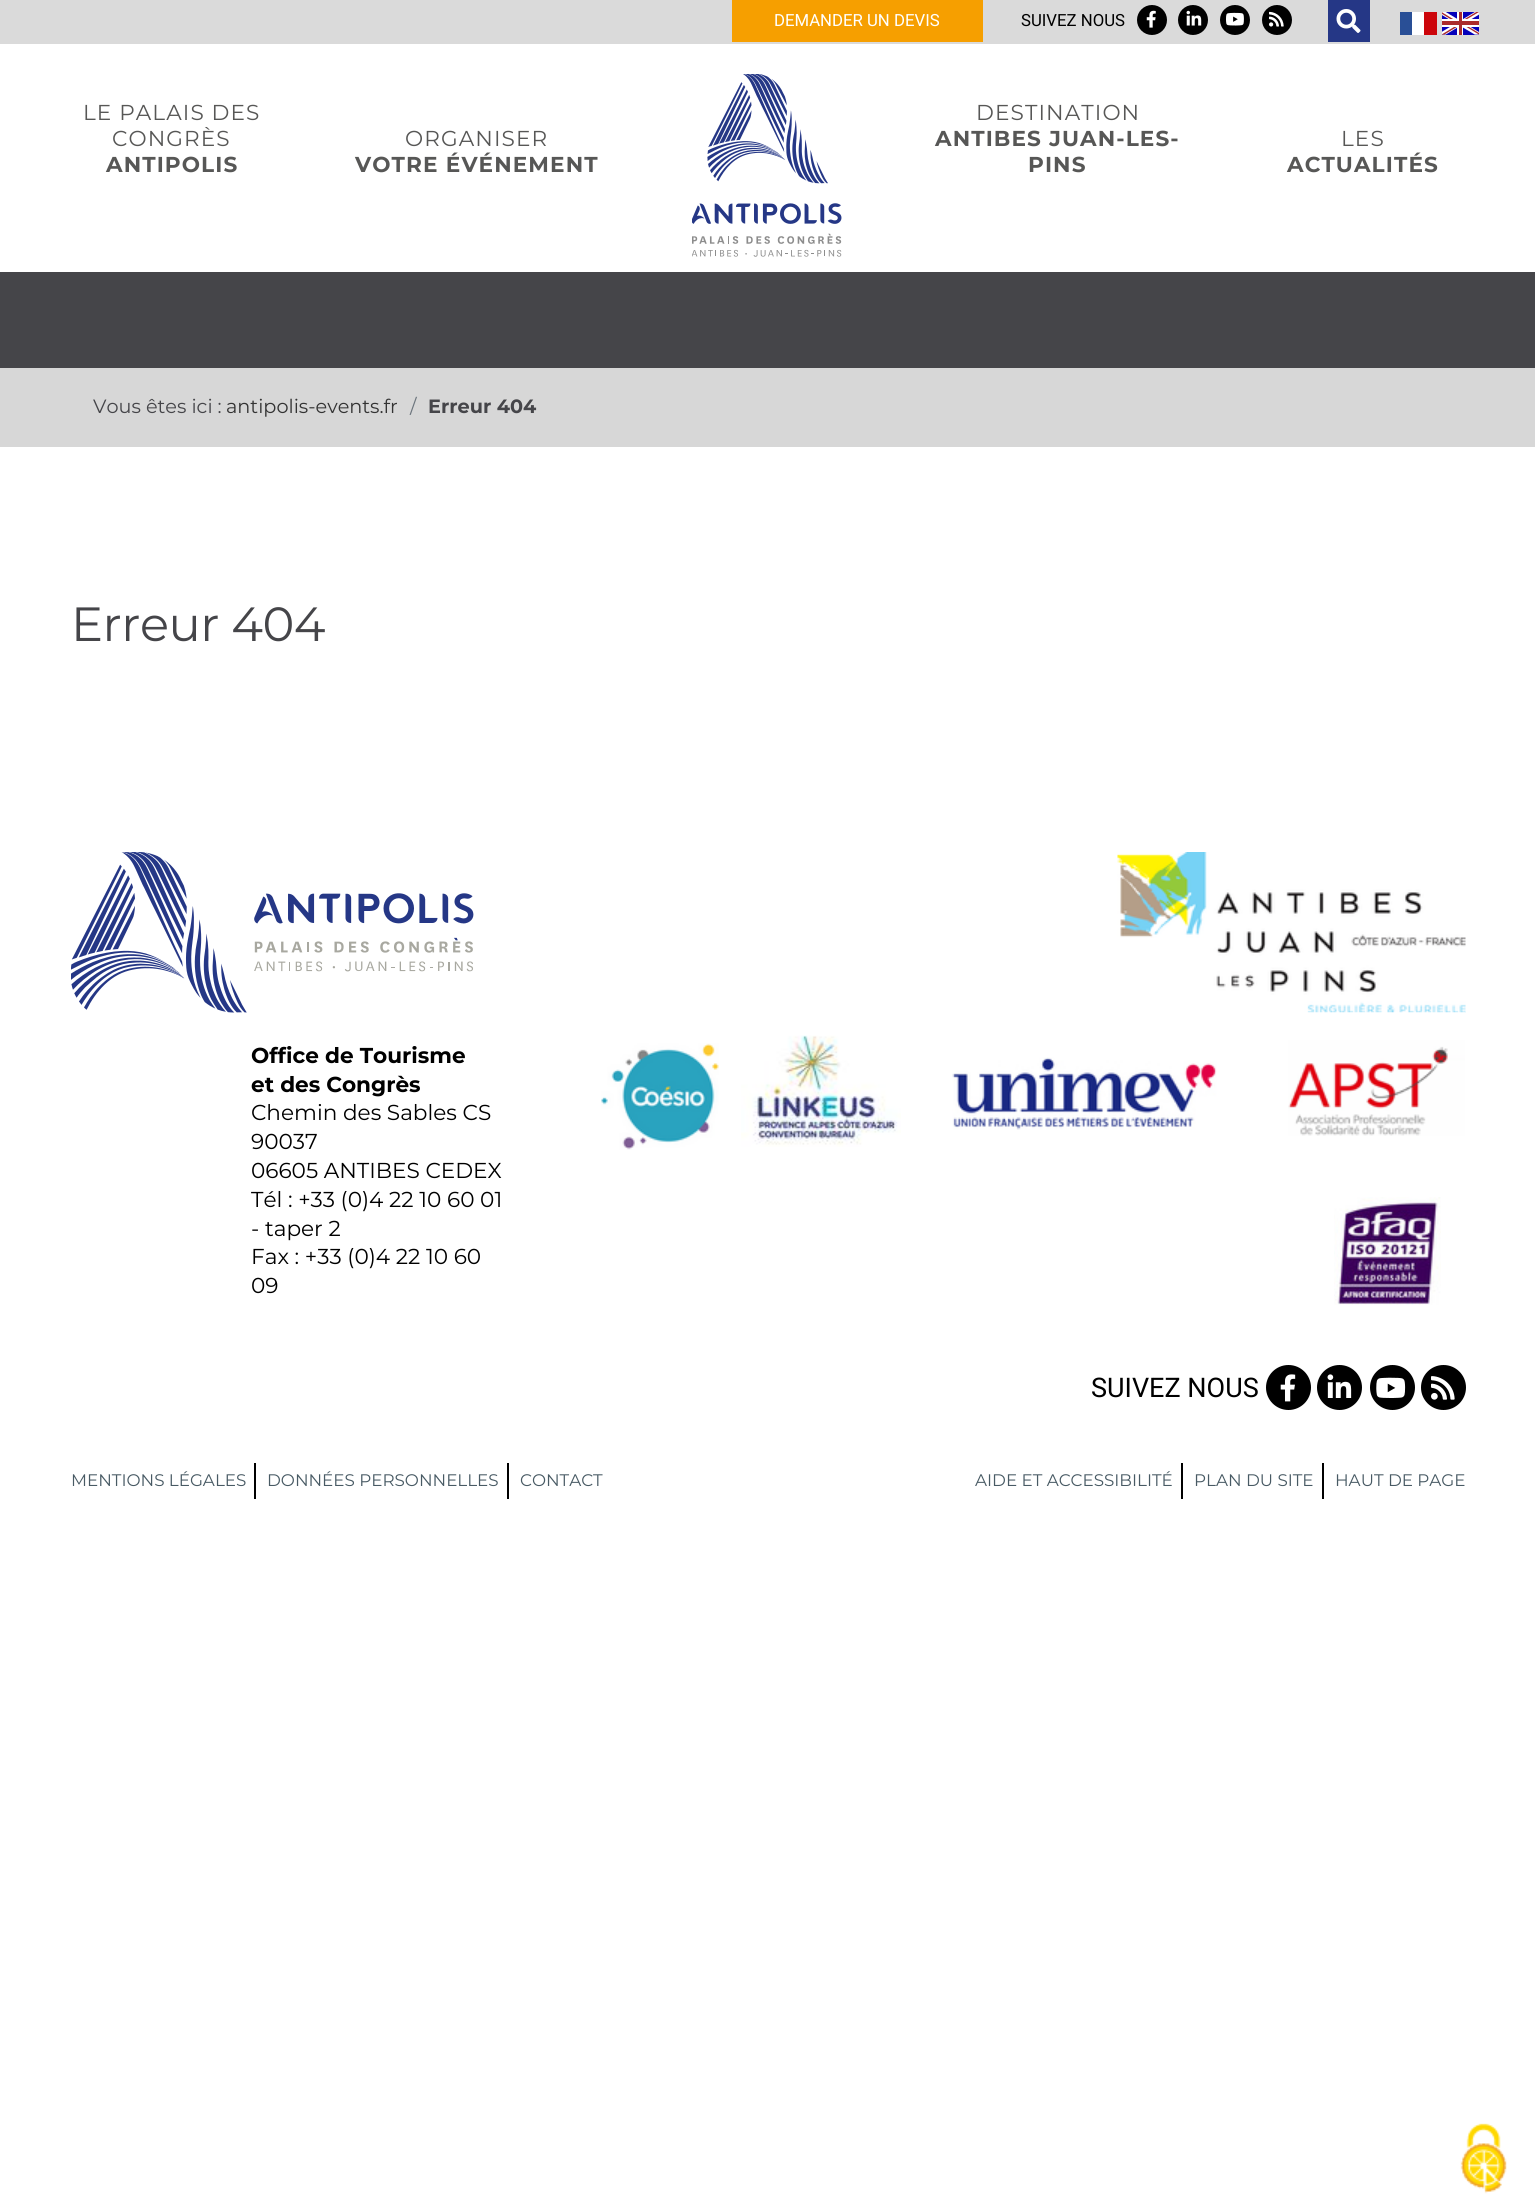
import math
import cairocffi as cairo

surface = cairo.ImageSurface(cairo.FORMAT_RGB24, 1535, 2212)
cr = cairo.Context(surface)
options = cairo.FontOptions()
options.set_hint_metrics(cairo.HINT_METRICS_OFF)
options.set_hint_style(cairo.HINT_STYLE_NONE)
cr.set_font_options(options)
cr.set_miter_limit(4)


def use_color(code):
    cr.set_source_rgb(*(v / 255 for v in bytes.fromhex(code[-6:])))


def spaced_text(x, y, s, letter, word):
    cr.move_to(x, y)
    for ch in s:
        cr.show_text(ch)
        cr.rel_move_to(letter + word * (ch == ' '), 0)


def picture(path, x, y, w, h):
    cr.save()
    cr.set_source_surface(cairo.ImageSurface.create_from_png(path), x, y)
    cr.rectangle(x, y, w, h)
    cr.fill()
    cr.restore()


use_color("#ffffff")
cr.paint()
use_color("#454549")
cr.rectangle(0, 272, 1535, 96)
cr.fill()
use_color("#dadada")
cr.rectangle(0, 0, 1535, 44)
cr.fill()
use_color("#f69f00")
cr.rectangle(732, 0, 251, 42)
cr.fill()
cr.select_font_face("Roboto")
cr.set_font_size(16.75)
use_color("#ffffff")
cr.move_to(774, 26)
cr.show_text("DEMANDER UN DEVIS")
use_color("#000000")
cr.move_to(1021, 26)
cr.show_text("SUIVEZ NOUS")
cr.new_path()
cr.arc(1152, 20, 14, 0, 2 * math.pi)
cr.fill_preserve()
cr.stroke()
picture("img1.png", 1146, 10, 10, 18)
cr.arc(1193, 20, 14, 0, 2 * math.pi)
cr.fill_preserve()
cr.stroke()
picture("img2.png", 1186, 10, 16, 16)
cr.arc(1235, 20, 14, 0, 2 * math.pi)
cr.fill_preserve()
cr.stroke()
picture("img3.png", 1226, 12, 18, 14)
cr.arc(1277, 20, 14, 0, 2 * math.pi)
cr.fill_preserve()
cr.stroke()
picture("img4.png", 1269, 11, 15, 16)
use_color("#253786")
cr.rectangle(1328, 0, 42, 42)
cr.fill()
picture("img5.png", 1336, 9, 25, 24)
use_color("#294f96")
cr.rectangle(1400, 12, 12, 23)
cr.fill()
use_color("#ffffff")
cr.rectangle(1412, 12, 12, 23)
cr.fill()
use_color("#cc050a")
cr.rectangle(1424, 12, 13, 23)
cr.fill()
picture("img6.png", 1442, 12, 37, 23)
cr.select_font_face("Montserrat")
cr.set_font_size(21.6)
use_color("#575756")
spaced_text(83, 120, "LE PALAIS DES", 1.1, 0)
spaced_text(112, 146, "CONGRÈS", 1.1, 0)
cr.select_font_face("Montserrat", cairo.FONT_SLANT_NORMAL, cairo.FONT_WEIGHT_BOLD)
spaced_text(106, 172, "ANTIPOLIS", 1.1, 0)
cr.select_font_face("Montserrat")
spaced_text(405, 146, "ORGANISER", 1.1, 0)
cr.select_font_face("Montserrat", cairo.FONT_SLANT_NORMAL, cairo.FONT_WEIGHT_BOLD)
spaced_text(355, 172, "VOTRE ÉVÉNEMENT", 1.1, 0)
picture("img7.png", 692, 74, 150, 183)
cr.select_font_face("Montserrat")
spaced_text(976, 120, "DESTINATION", 1.1, 0)
cr.select_font_face("Montserrat", cairo.FONT_SLANT_NORMAL, cairo.FONT_WEIGHT_BOLD)
spaced_text(935, 146, "ANTIBES JUAN-LES-", 1.1, 0)
spaced_text(1028, 172, "PINS", 1.1, 0)
cr.select_font_face("Montserrat")
spaced_text(1341, 146, "LES", 1.1, 0)
cr.select_font_face("Montserrat", cairo.FONT_SLANT_NORMAL, cairo.FONT_WEIGHT_BOLD)
spaced_text(1287, 172, "ACTUALITÉS", 1.1, 0)
use_color("#d7d7d7")
cr.rectangle(0, 368, 1535, 79)
cr.fill()
cr.select_font_face("Montserrat")
cr.set_font_size(19.25)
use_color("#454549")
cr.move_to(93, 413)
cr.show_text("Vous êtes ici :")
use_color("#333333")
cr.move_to(226, 413)
cr.show_text("antipolis-events.fr")
use_color("#6c757d")
cr.move_to(410, 413)
cr.show_text("/")
cr.select_font_face("Montserrat", cairo.FONT_SLANT_NORMAL, cairo.FONT_WEIGHT_BOLD)
use_color("#454549")
cr.move_to(428, 413)
cr.show_text("Erreur 404")
cr.select_font_face("Montserrat")
cr.set_font_size(48)
spaced_text(71, 641, "Erreur 404", -0.5, 0)
picture("img8.png", 71, 852, 403, 161)
cr.select_font_face("Montserrat", cairo.FONT_SLANT_NORMAL, cairo.FONT_WEIGHT_BOLD)
cr.set_font_size(21.6)
use_color("#000000")
cr.move_to(251, 1063)
cr.show_text("Office de Tourisme")
cr.move_to(251, 1092)
cr.show_text("et des Congrès")
cr.select_font_face("Montserrat")
cr.move_to(251, 1120)
cr.show_text("Chemin des Sables CS")
cr.move_to(251, 1149)
cr.show_text("90037")
cr.move_to(251, 1178)
cr.show_text("06605 ANTIBES CEDEX")
cr.move_to(251, 1207)
cr.show_text("Tél : +33 (0)4 22 10 60 01")
cr.move_to(251, 1236)
cr.show_text("- taper 2")
cr.move_to(251, 1264)
cr.show_text("Fax : +33 (0)4 22 10 60")
cr.move_to(251, 1293)
cr.show_text("09")
picture("img9.png", 1117, 852, 349, 161)
picture("img10.png", 601, 1043, 118, 107)
picture("img11.png", 741, 1035, 160, 112)
picture("img12.png", 952, 1057, 265, 73)
picture("img13.png", 1288, 1012, 177, 124)
picture("img14.png", 1334, 1197, 107, 108)
cr.select_font_face("Roboto")
cr.set_font_size(27)
cr.move_to(1091, 1397)
cr.show_text("SUIVEZ NOUS")
cr.new_path()
cr.arc(1288.5, 1387.5, 21.5, 0, 2 * math.pi)
cr.fill_preserve()
cr.stroke()
picture("img15.png", 1280, 1374, 16, 28)
cr.arc(1339.5, 1387.5, 21.5, 0, 2 * math.pi)
cr.fill_preserve()
cr.stroke()
picture("img16.png", 1327, 1374, 25, 24)
cr.arc(1392.5, 1387.5, 21.5, 0, 2 * math.pi)
cr.fill_preserve()
cr.stroke()
picture("img17.png", 1376, 1377, 30, 21)
cr.arc(1443.5, 1387.5, 21.5, 0, 2 * math.pi)
cr.fill_preserve()
cr.stroke()
picture("img18.png", 1431, 1376, 24, 24)
cr.select_font_face("Montserrat")
cr.set_font_size(16.75)
use_color("#485a64")
cr.move_to(71, 1486)
cr.show_text("MENTIONS LÉGALES")
use_color("#000000")
cr.rectangle(254, 1463, 2, 36)
cr.fill()
use_color("#485a64")
cr.move_to(267, 1486)
cr.show_text("DONNÉES PERSONNELLES")
use_color("#000000")
cr.rectangle(507, 1463, 2, 36)
cr.fill()
use_color("#485a64")
cr.move_to(520, 1486)
cr.show_text("CONTACT")
cr.move_to(975, 1486)
cr.show_text("AIDE ET ACCESSIBILITÉ")
use_color("#000000")
cr.rectangle(1181, 1463, 2, 36)
cr.fill()
use_color("#485a64")
cr.move_to(1194, 1486)
cr.show_text("PLAN DU SITE")
use_color("#000000")
cr.rectangle(1322, 1463, 2, 36)
cr.fill()
use_color("#485a64")
cr.move_to(1335, 1486)
cr.show_text("HAUT DE PAGE")
picture("img19.png", 1460, 2123, 47, 71)
surface.write_to_png("result.png")
